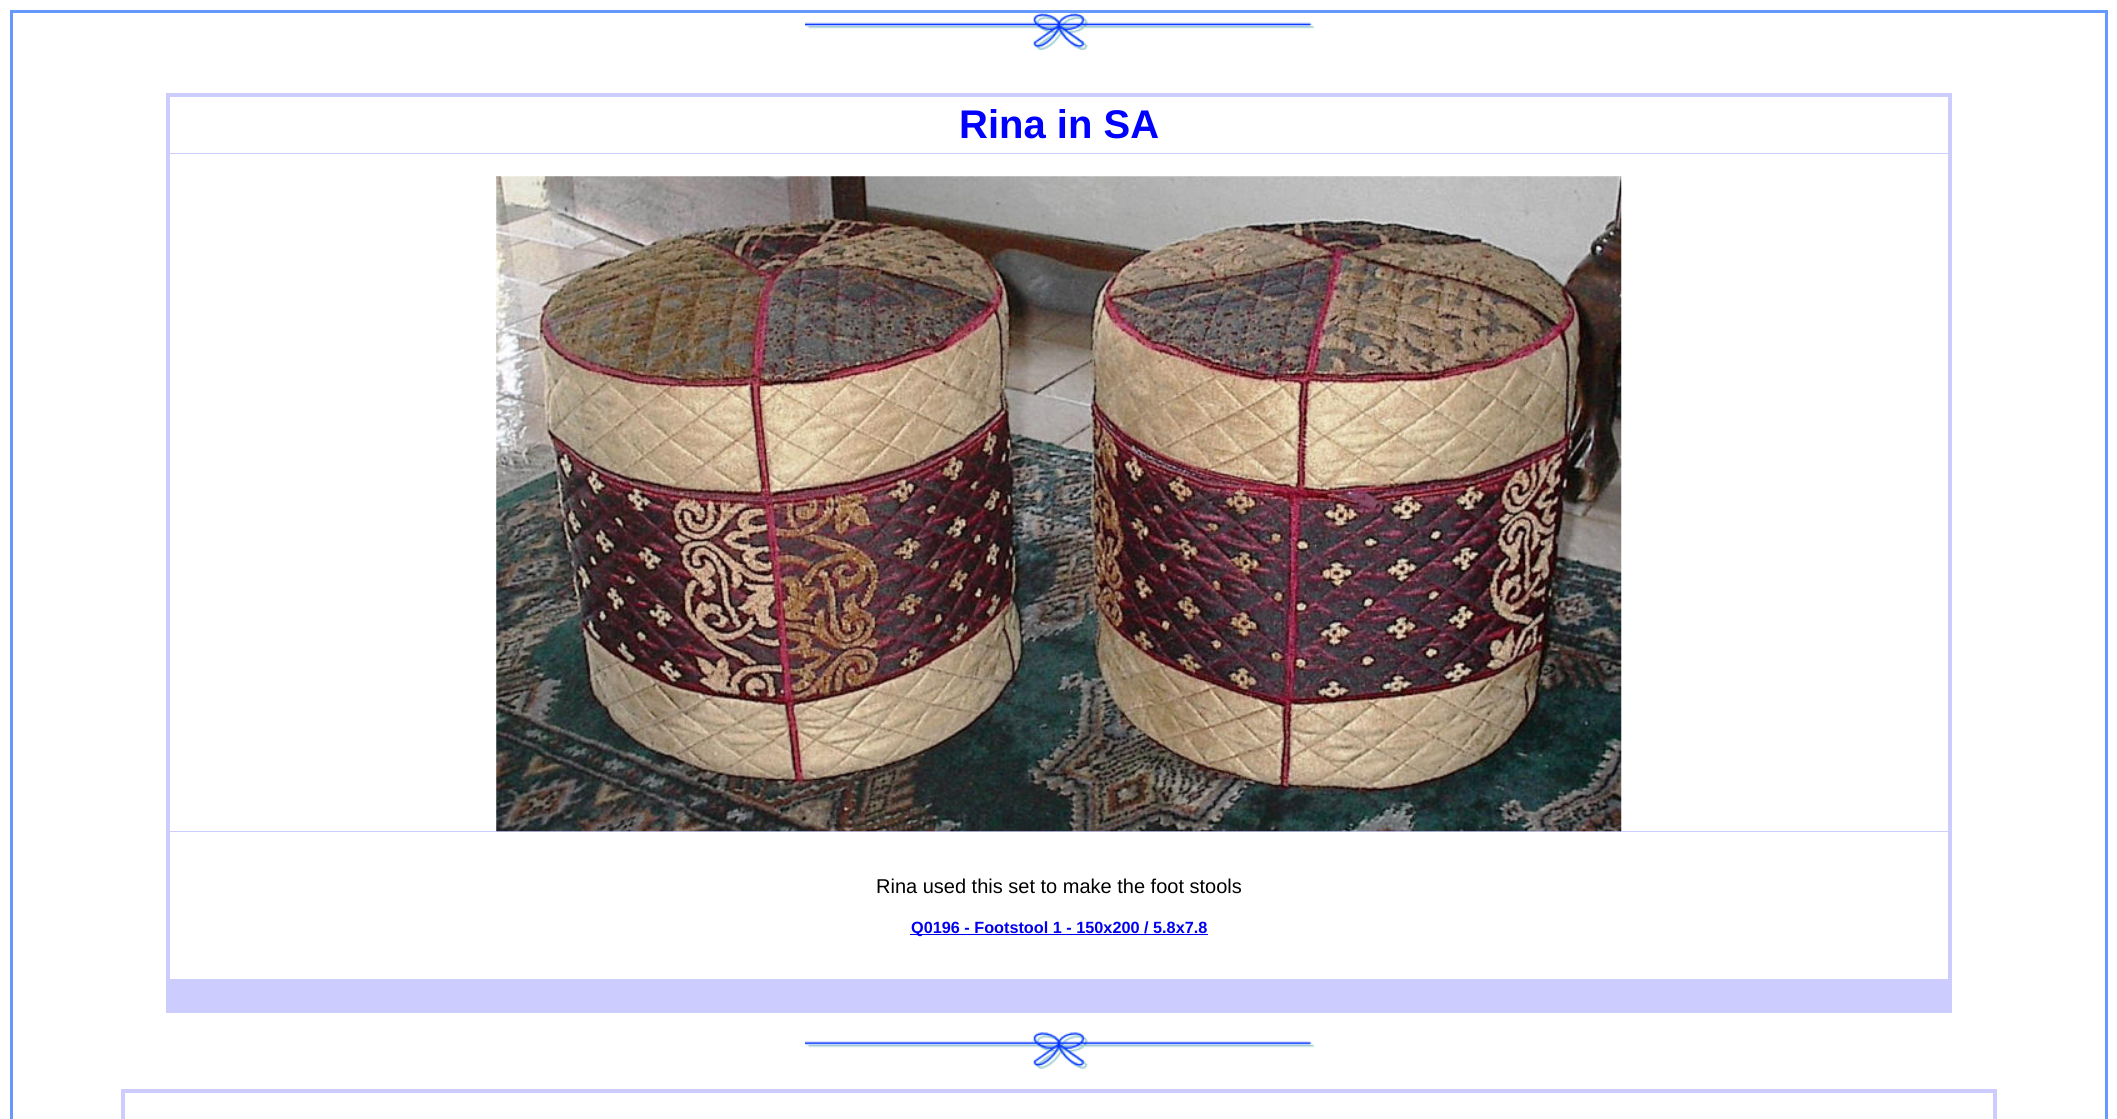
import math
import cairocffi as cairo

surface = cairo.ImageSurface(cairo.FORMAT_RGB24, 2117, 1119)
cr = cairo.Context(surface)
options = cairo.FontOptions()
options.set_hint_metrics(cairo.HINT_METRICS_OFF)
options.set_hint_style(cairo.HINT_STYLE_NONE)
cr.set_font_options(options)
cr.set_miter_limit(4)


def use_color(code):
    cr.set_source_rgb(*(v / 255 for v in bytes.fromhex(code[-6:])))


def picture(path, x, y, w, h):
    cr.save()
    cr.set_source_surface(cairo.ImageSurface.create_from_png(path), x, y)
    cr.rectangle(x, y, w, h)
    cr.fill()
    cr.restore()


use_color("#ffffff")
cr.paint()
cr.rectangle(11.5, 11.5, 2095, 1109)
use_color("#6699ff")
cr.set_line_width(3)
cr.stroke()
picture("img1.png", 805, 13, 509, 37)
use_color("#ccccff")
cr.rectangle(166, 93, 1785, 4)
cr.fill()
cr.rectangle(168, 153, 1782, 1)
cr.fill()
cr.rectangle(168, 831, 1782, 1)
cr.fill()
cr.rectangle(168, 979, 1782, 1)
cr.fill()
cr.rectangle(1948, 93, 4, 920)
cr.fill()
cr.rectangle(166, 1009, 1785, 4)
cr.fill()
cr.rectangle(166, 93, 4, 920)
cr.fill()
cr.select_font_face("Liberation Sans", cairo.FONT_SLANT_NORMAL, cairo.FONT_WEIGHT_BOLD)
cr.set_font_size(40)
use_color("#0000ff")
cr.move_to(959, 138)
cr.show_text("Rina in SA")
picture("img2.png", 496, 176, 1126, 656)
cr.select_font_face("Liberation Sans")
cr.set_font_size(20)
use_color("#000000")
cr.move_to(876, 893)
cr.show_text("Rina used this set to make the foot stools")
use_color("#0000ee")
cr.rectangle(910, 934, 298, 1)
cr.fill()
cr.select_font_face("Liberation Sans", cairo.FONT_SLANT_NORMAL, cairo.FONT_WEIGHT_BOLD)
cr.set_font_size(16.25)
cr.move_to(911, 933)
cr.show_text("Q0196 - Footstool 1 - 150x200 / 5.8x7.8")
use_color("#ccccff")
cr.rectangle(170, 980, 1778, 29)
cr.fill()
picture("img3.png", 805, 1032, 509, 37)
cr.rectangle(121, 1089, 1875, 4)
cr.fill()
cr.rectangle(1993, 1089, 4, 30)
cr.fill()
cr.rectangle(121, 1089, 4, 30)
cr.fill()
surface.write_to_png("result.png")
